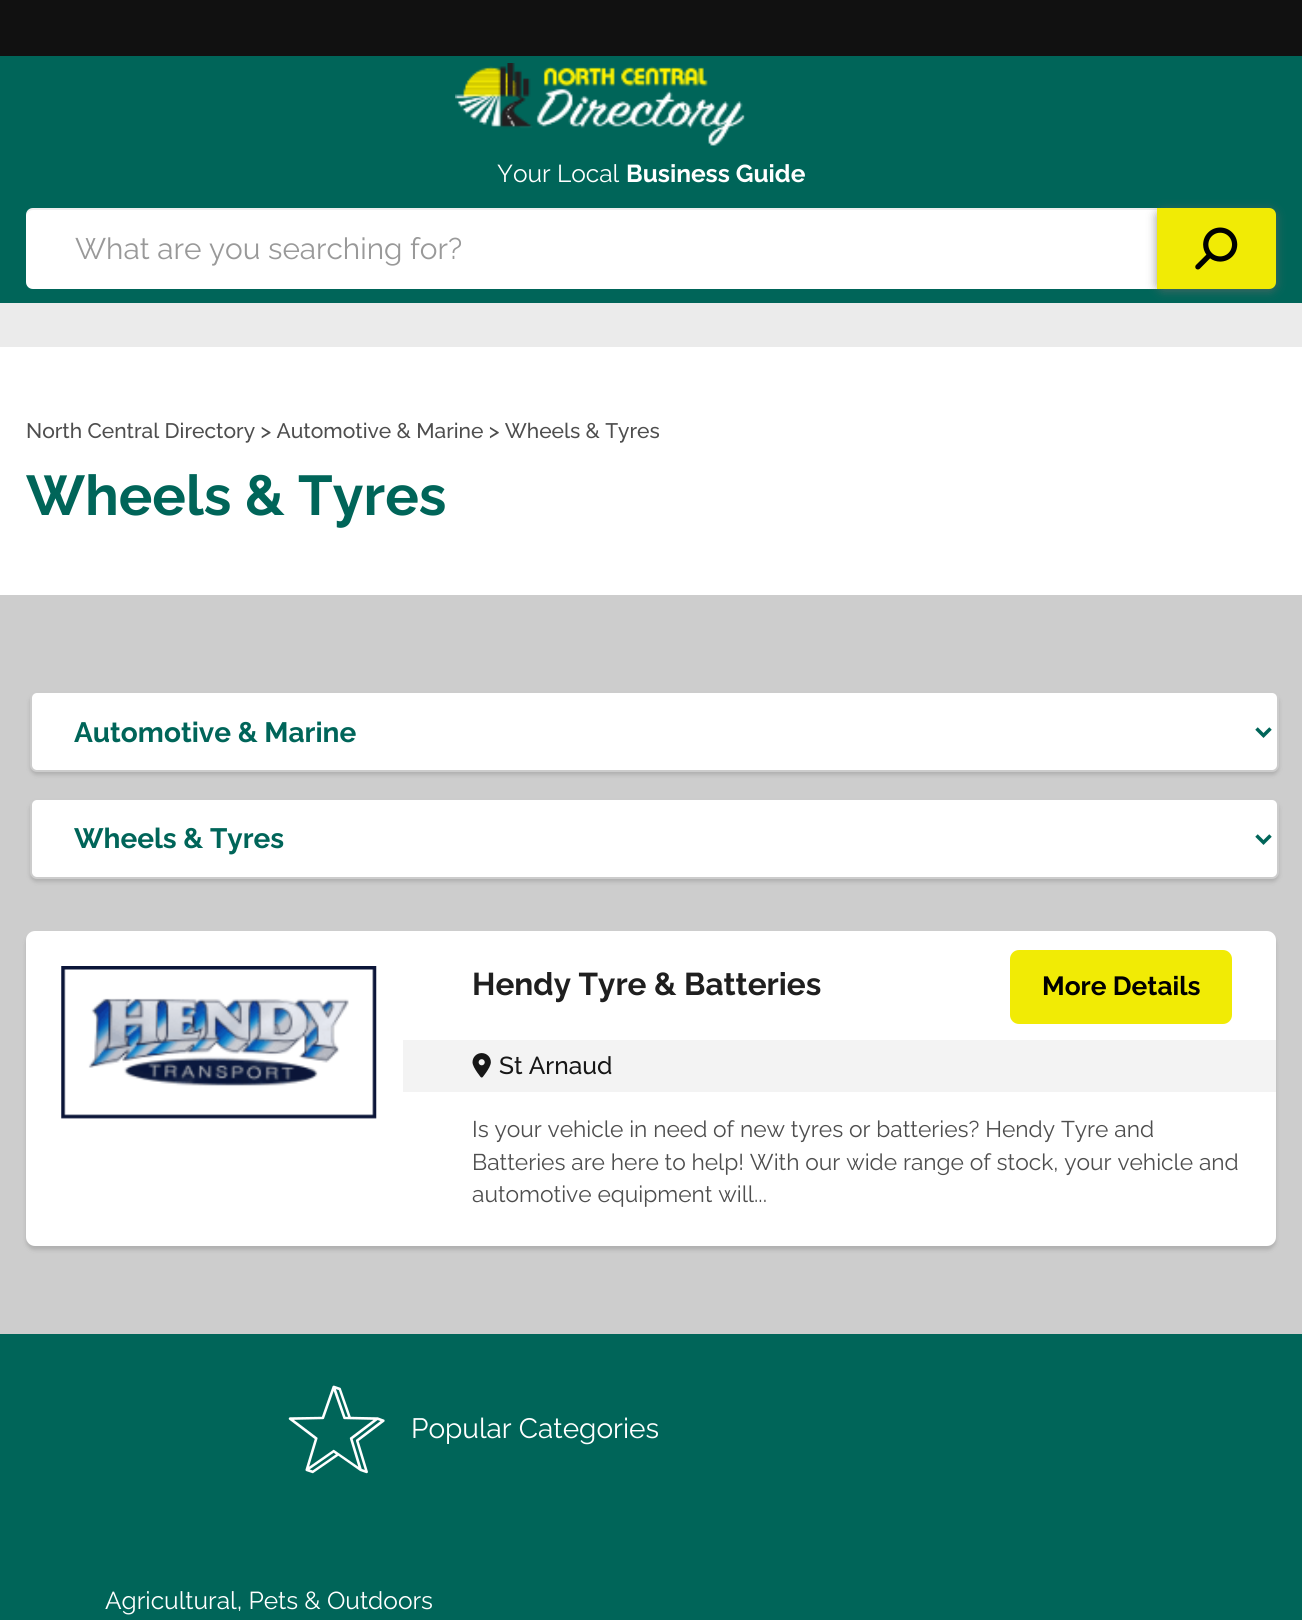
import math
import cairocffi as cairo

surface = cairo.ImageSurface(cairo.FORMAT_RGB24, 1302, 1620)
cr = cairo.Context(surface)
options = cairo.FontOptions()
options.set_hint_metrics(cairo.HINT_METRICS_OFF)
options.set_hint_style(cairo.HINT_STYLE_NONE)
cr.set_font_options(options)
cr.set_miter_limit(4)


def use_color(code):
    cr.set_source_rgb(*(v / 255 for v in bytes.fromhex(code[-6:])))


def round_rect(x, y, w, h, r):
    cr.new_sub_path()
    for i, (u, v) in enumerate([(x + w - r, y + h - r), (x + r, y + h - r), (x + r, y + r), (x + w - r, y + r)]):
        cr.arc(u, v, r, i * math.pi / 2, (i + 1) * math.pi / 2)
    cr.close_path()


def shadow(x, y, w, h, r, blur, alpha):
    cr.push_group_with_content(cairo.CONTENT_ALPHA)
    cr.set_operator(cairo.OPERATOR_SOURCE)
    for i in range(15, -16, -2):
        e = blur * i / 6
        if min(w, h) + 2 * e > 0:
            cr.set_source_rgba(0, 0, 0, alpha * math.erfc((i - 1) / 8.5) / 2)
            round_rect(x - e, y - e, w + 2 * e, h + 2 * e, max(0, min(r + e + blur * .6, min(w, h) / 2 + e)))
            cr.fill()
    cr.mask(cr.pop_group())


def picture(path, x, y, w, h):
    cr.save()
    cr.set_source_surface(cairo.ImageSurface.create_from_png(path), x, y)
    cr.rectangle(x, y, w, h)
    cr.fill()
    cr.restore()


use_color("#111111")
cr.paint()
use_color("#006559")
cr.rectangle(0, 56, 1302, 247)
cr.fill()
picture("img1.png", 455, 63, 290, 83)
cr.select_font_face("Raleway")
cr.set_font_size(24.5)
use_color("#ffffff")
cr.move_to(497, 182)
cr.show_text("Your Local")
cr.select_font_face("Raleway", cairo.FONT_SLANT_NORMAL, cairo.FONT_WEIGHT_BOLD)
cr.move_to(626, 182)
cr.show_text("Business Guide")
cr.new_path()
cr.move_to(33, 208)
cr.line_to(1157, 208)
cr.line_to(1157, 289)
cr.line_to(33, 289)
cr.curve_to(29, 289, 26, 286, 26, 282)
cr.line_to(26, 215)
cr.curve_to(26, 211, 29, 208, 33, 208)
cr.close_path()
cr.fill()
cr.set_source_rgba(0, 0, 0, 0.07)
cr.new_path()
cr.move_to(33, 210)
cr.line_to(1157, 210)
cr.line_to(1157, 208)
cr.line_to(33, 208)
cr.curve_to(28, 208, 26, 213, 26, 217)
cr.curve_to(26, 213, 29, 210, 33, 210)
cr.close_path()
cr.fill()
cr.select_font_face("Raleway")
cr.set_font_size(29.75)
use_color("#999999")
cr.move_to(75, 259)
cr.show_text("What are you searching for?")
use_color("#ebebeb")
cr.rectangle(0, 303, 1302, 44)
cr.fill()
use_color("#666666")
shadow(1157, 210, 119, 81, 7, 5, 0.7)
use_color("#f1eb05")
cr.new_path()
cr.move_to(1157, 208)
cr.line_to(1269, 208)
cr.curve_to(1273, 208, 1276, 211, 1276, 215)
cr.line_to(1276, 282)
cr.curve_to(1276, 286, 1273, 289, 1269, 289)
cr.line_to(1157, 289)
cr.close_path()
cr.fill()
picture("img2.png", 1195, 227, 43, 43)
use_color("#ffffff")
cr.rectangle(0, 347, 1302, 248)
cr.fill()
cr.select_font_face("Raleway Medium")
cr.set_font_size(21)
use_color("#4e4e4e")
cr.move_to(26, 438)
cr.show_text("North Central Directory > Automotive & Marine > Wheels & Tyres")
cr.select_font_face("Raleway", cairo.FONT_SLANT_NORMAL, cairo.FONT_WEIGHT_BOLD)
cr.set_font_size(56)
use_color("#006559")
cr.move_to(26, 515)
cr.show_text("Wheels & Tyres")
use_color("#cdcdcd")
cr.rectangle(0, 595, 1302, 739)
cr.fill()
use_color("#3a3b3a")
shadow(30, 695, 1249, 80, 7, 2, 0.2)
use_color("#ffffff")
round_rect(31, 692, 1247, 79, 6)
cr.fill_preserve()
use_color("#cccccc")
cr.stroke()
cr.new_path()
cr.move_to(1256.5, 728.5)
cr.line_to(1263.5, 735.5)
cr.line_to(1270.5, 728.5)
use_color("#006559")
cr.set_line_width(3.5)
cr.stroke()
cr.set_font_size(28)
cr.move_to(74, 742)
cr.show_text("Automotive & Marine")
use_color("#3a3b3a")
shadow(30, 802, 1249, 80, 7, 2, 0.2)
use_color("#ffffff")
round_rect(31, 799, 1247, 79, 6)
cr.fill_preserve()
use_color("#cccccc")
cr.set_line_width(2)
cr.stroke()
cr.new_path()
cr.move_to(1256.5, 835.5)
cr.line_to(1263.5, 842.5)
cr.line_to(1270.5, 835.5)
use_color("#006559")
cr.set_line_width(3.5)
cr.stroke()
cr.move_to(74, 848)
cr.show_text("Wheels & Tyres")
use_color("#3a3b3a")
shadow(26, 935, 1250, 315, 9, 2, 0.2)
use_color("#ffffff")
round_rect(26, 931, 1250, 315, 9)
cr.fill()
picture("img3.png", 61, 966, 316, 153)
cr.set_font_size(31.5)
use_color("#1f1f1f")
cr.move_to(472, 995)
cr.show_text("Hendy Tyre & Batteries")
use_color("#f1eb05")
round_rect(1010, 950, 222, 74, 9)
cr.fill()
cr.set_font_size(26.25)
use_color("#000000")
cr.move_to(1042, 995)
cr.show_text("More Details")
use_color("#f3f3f3")
cr.rectangle(403, 1040, 873, 52)
cr.fill()
picture("img4.png", 472, 1053, 19, 25)
cr.select_font_face("Raleway Medium")
cr.set_font_size(24.5)
use_color("#171717")
cr.move_to(499, 1074)
cr.show_text("St Arnaud")
cr.select_font_face("Raleway")
cr.set_font_size(22.75)
use_color("#4e4e4e")
cr.move_to(472, 1137)
cr.show_text("Is your vehicle in need of new tyres or batteries? Hendy Tyre and")
cr.move_to(472, 1170)
cr.show_text("Batteries are here to help! With our wide range of stock, your vehicle and")
cr.move_to(472, 1202)
cr.show_text("automotive equipment will...")
use_color("#006559")
cr.rectangle(0, 1334, 1302, 286)
cr.fill()
picture("img5.png", 288, 1385, 97, 89)
cr.set_font_size(28)
use_color("#ffffff")
cr.move_to(411, 1438)
cr.show_text("Popular Categories")
cr.set_font_size(24.5)
cr.move_to(105, 1609)
cr.show_text("Agricultural, Pets & Outdoors")
surface.write_to_png("result.png")
